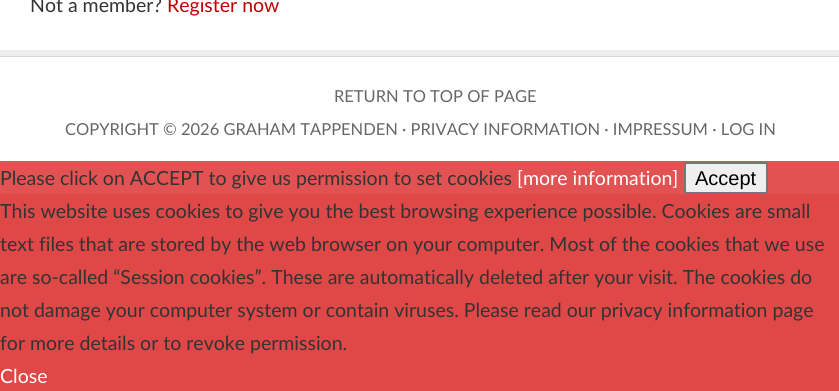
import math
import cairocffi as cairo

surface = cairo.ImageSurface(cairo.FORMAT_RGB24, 839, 391)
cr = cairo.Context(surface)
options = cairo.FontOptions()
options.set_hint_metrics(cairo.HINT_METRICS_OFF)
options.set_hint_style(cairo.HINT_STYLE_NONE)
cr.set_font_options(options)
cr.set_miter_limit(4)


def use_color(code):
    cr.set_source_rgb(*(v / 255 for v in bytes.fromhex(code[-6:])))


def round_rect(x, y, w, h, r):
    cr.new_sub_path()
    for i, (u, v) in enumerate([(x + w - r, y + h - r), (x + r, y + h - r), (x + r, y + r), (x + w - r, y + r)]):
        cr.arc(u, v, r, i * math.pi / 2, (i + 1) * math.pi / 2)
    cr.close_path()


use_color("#ffffff")
cr.paint()
use_color("#d5d5d5")
cr.rectangle(0, 56, 839, 1)
cr.fill()
use_color("#eeeeee")
cr.rectangle(0, 50, 839, 6)
cr.fill()
cr.select_font_face("Lato")
cr.set_font_size(19.5)
use_color("#333333")
cr.move_to(30, 12)
cr.show_text("Not a member?")
use_color("#be0100")
cr.move_to(167, 12)
cr.show_text("Register now")
cr.set_font_size(16.5)
use_color("#666666")
cr.move_to(334, 102)
cr.show_text("RETURN TO TOP OF PAGE")
cr.move_to(65, 135)
cr.show_text("COPYRIGHT © 2026 GRAHAM TAPPENDEN · PRIVACY INFORMATION · IMPRESSUM · LOG IN")
use_color("#e25252")
cr.rectangle(0, 161, 839, 33)
cr.fill()
cr.set_font_size(19.5)
use_color("#333333")
cr.move_to(0, 185)
cr.show_text("Please click on ACCEPT to give us permission to set cookies")
use_color("#ffffff")
cr.move_to(517, 185)
cr.show_text("[more information]")
use_color("#efefef")
round_rect(685, 163, 82, 30, 2)
cr.fill_preserve()
use_color("#767676")
cr.stroke()
cr.select_font_face("Liberation Sans")
cr.set_font_size(20)
use_color("#000000")
cr.move_to(695, 185)
cr.show_text("Accept")
use_color("#e04747")
cr.rectangle(0, 194, 839, 197)
cr.fill()
cr.select_font_face("Lato")
cr.set_font_size(19.5)
use_color("#333333")
cr.move_to(0, 218)
cr.show_text("This website uses cookies to give you the best browsing experience possible. Cookies are small")
cr.move_to(0, 251)
cr.show_text("text files that are stored by the web browser on your computer. Most of the cookies that we use")
cr.move_to(0, 284)
cr.show_text("are so-called “Session cookies”. These are automatically deleted after your visit. The cookies do")
cr.move_to(0, 317)
cr.show_text("not damage your computer system or contain viruses. Please read our privacy information page")
cr.move_to(0, 350)
cr.show_text("for more details or to revoke permission.")
use_color("#ffffff")
cr.move_to(0, 383)
cr.show_text("Close")
surface.write_to_png("result.png")
